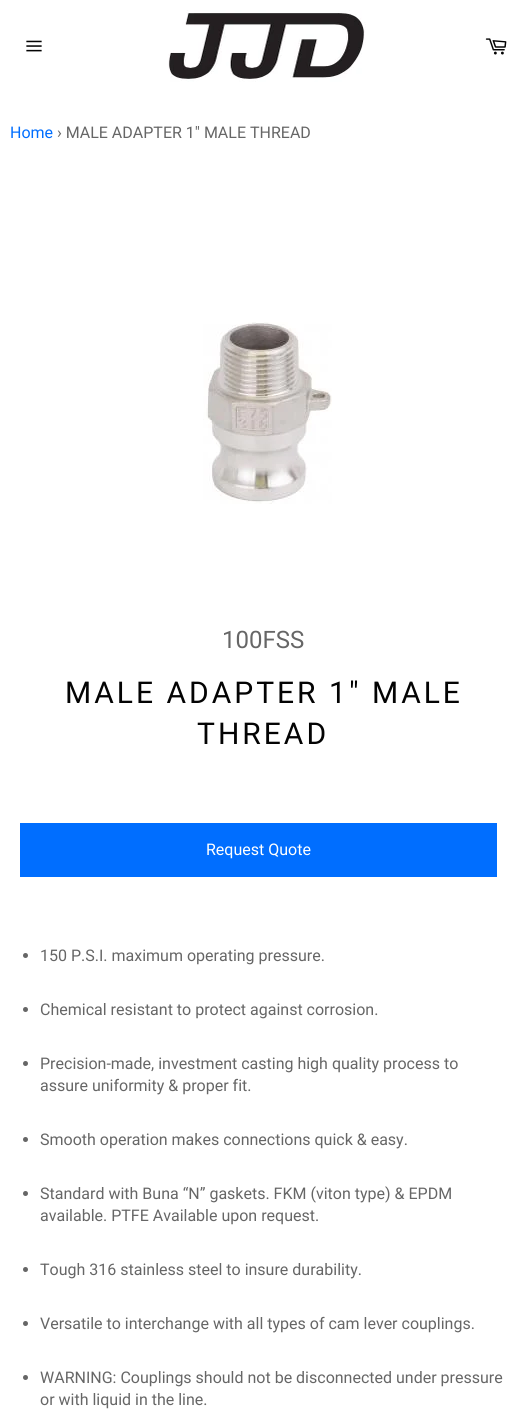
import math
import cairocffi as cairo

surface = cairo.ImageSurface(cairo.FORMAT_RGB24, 527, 1410)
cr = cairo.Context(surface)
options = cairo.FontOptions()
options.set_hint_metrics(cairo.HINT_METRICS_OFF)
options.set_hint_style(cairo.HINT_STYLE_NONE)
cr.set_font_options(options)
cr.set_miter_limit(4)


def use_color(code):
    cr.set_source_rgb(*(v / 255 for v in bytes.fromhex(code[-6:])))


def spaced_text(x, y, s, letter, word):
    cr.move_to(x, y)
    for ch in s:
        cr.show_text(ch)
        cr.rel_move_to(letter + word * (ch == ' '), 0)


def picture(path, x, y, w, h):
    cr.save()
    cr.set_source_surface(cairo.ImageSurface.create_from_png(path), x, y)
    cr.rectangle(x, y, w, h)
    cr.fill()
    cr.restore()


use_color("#ffffff")
cr.paint()
picture("img1.png", 26, 40, 16, 12)
picture("img2.png", 168, 10, 198, 72)
picture("img3.png", 485, 38, 22, 17)
cr.select_font_face("Roboto")
cr.set_font_size(16)
use_color("#006eff")
cr.move_to(10, 138)
cr.show_text("Home")
use_color("#666666")
cr.move_to(57, 138)
cr.show_text("› MALE ADAPTER 1\" MALE THREAD")
picture("img4.png", 203, 322, 129, 182)
cr.set_font_size(24)
cr.move_to(222, 648)
cr.show_text("100FSS")
cr.set_font_size(30)
use_color("#030303")
spaced_text(65, 703, "MALE ADAPTER 1\" MALE", 3, 0)
spaced_text(197, 744, "THREAD", 3, 0)
use_color("#006eff")
cr.rectangle(20, 823, 477, 54)
cr.fill()
cr.set_font_size(16)
use_color("#ffffff")
cr.move_to(206, 855)
cr.show_text("Request Quote")
use_color("#666666")
cr.new_path()
cr.arc(25.5, 955.5, 2.5, 0, 2 * math.pi)
cr.fill()
cr.move_to(40, 961)
cr.show_text("150 P.S.I. maximum operating pressure.")
cr.new_path()
cr.arc(25.5, 1009.5, 2.5, 0, 2 * math.pi)
cr.fill()
cr.move_to(40, 1015)
cr.show_text("Chemical resistant to protect against corrosion.")
cr.new_path()
cr.arc(25.5, 1063.5, 2.5, 0, 2 * math.pi)
cr.fill()
cr.move_to(40, 1069)
cr.show_text("Precision-made, investment casting high quality process to")
cr.move_to(40, 1091)
cr.show_text("assure uniformity & proper fit.")
cr.new_path()
cr.arc(25.5, 1139.5, 2.5, 0, 2 * math.pi)
cr.fill()
cr.move_to(40, 1145)
cr.show_text("Smooth operation makes connections quick & easy.")
cr.new_path()
cr.arc(25.5, 1193.5, 2.5, 0, 2 * math.pi)
cr.fill()
cr.move_to(40, 1199)
cr.show_text("Standard with Buna “N” gaskets. FKM (viton type) & EPDM")
cr.move_to(40, 1221)
cr.show_text("available. PTFE Available upon request.")
cr.new_path()
cr.arc(25.5, 1269.5, 2.5, 0, 2 * math.pi)
cr.fill()
cr.move_to(40, 1275)
cr.show_text("Tough 316 stainless steel to insure durability.")
cr.new_path()
cr.arc(25.5, 1323.5, 2.5, 0, 2 * math.pi)
cr.fill()
cr.move_to(40, 1329)
cr.show_text("Versatile to interchange with all types of cam lever couplings.")
cr.new_path()
cr.arc(25.5, 1377.5, 2.5, 0, 2 * math.pi)
cr.fill()
cr.move_to(40, 1383)
cr.show_text("WARNING: Couplings should not be disconnected under pressure")
cr.move_to(40, 1405)
cr.show_text("or with liquid in the line.")
surface.write_to_png("result.png")
